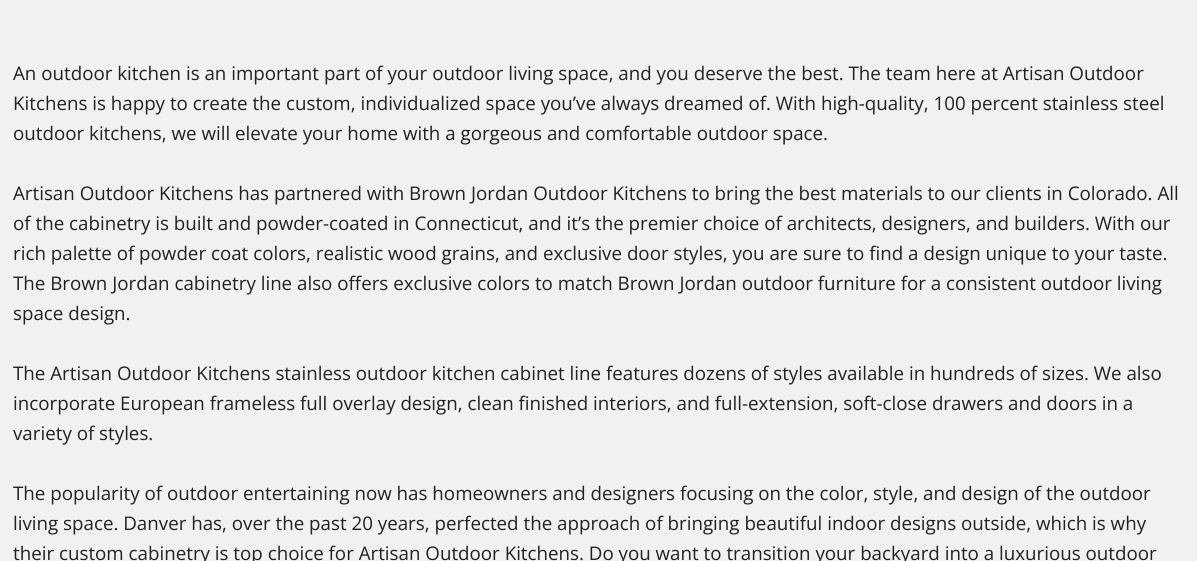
import math
import cairocffi as cairo

surface = cairo.ImageSurface(cairo.FORMAT_RGB24, 1197, 561)
cr = cairo.Context(surface)
options = cairo.FontOptions()
options.set_hint_metrics(cairo.HINT_METRICS_OFF)
options.set_hint_style(cairo.HINT_STYLE_NONE)
cr.set_font_options(options)
cr.set_miter_limit(4)


def use_color(code):
    cr.set_source_rgb(*(v / 255 for v in bytes.fromhex(code[-6:])))


use_color("#f1f1f1")
cr.paint()
cr.select_font_face("Open Sans")
cr.set_font_size(18.75)
use_color("#212121")
cr.move_to(13, 80)
cr.show_text("An outdoor kitchen is an important part of your outdoor living space, and you deserve the best. The team here at Artisan Outdoor")
cr.move_to(13, 110)
cr.show_text("Kitchens is happy to create the custom, individualized space you’ve always dreamed of. With high-quality, 100 percent stainless steel")
cr.move_to(13, 140)
cr.show_text("outdoor kitchens, we will elevate your home with a gorgeous and comfortable outdoor space.")
cr.move_to(13, 200)
cr.show_text("Artisan Outdoor Kitchens has partnered with Brown Jordan Outdoor Kitchens to bring the best materials to our clients in Colorado. All")
cr.move_to(13, 230)
cr.show_text("of the cabinetry is built and powder-coated in Connecticut, and it’s the premier choice of architects, designers, and builders. With our")
cr.move_to(13, 260)
cr.show_text("rich palette of powder coat colors, realistic wood grains, and exclusive door styles, you are sure to find a design unique to your taste.")
cr.move_to(13, 290)
cr.show_text("The Brown Jordan cabinetry line also offers exclusive colors to match Brown Jordan outdoor furniture for a consistent outdoor living")
cr.move_to(13, 320)
cr.show_text("space design.")
cr.move_to(13, 380)
cr.show_text("The Artisan Outdoor Kitchens stainless outdoor kitchen cabinet line features dozens of styles available in hundreds of sizes. We also")
cr.move_to(13, 410)
cr.show_text("incorporate European frameless full overlay design, clean finished interiors, and full-extension, soft-close drawers and doors in a")
cr.move_to(13, 440)
cr.show_text("variety of styles.")
cr.move_to(13, 500)
cr.show_text("The popularity of outdoor entertaining now has homeowners and designers focusing on the color, style, and design of the outdoor")
cr.move_to(13, 530)
cr.show_text("living space. Danver has, over the past 20 years, perfected the approach of bringing beautiful indoor designs outside, which is why")
cr.move_to(13, 560)
cr.show_text("their custom cabinetry is top choice for Artisan Outdoor Kitchens. Do you want to transition your backyard into a luxurious outdoor")
surface.write_to_png("result.png")
